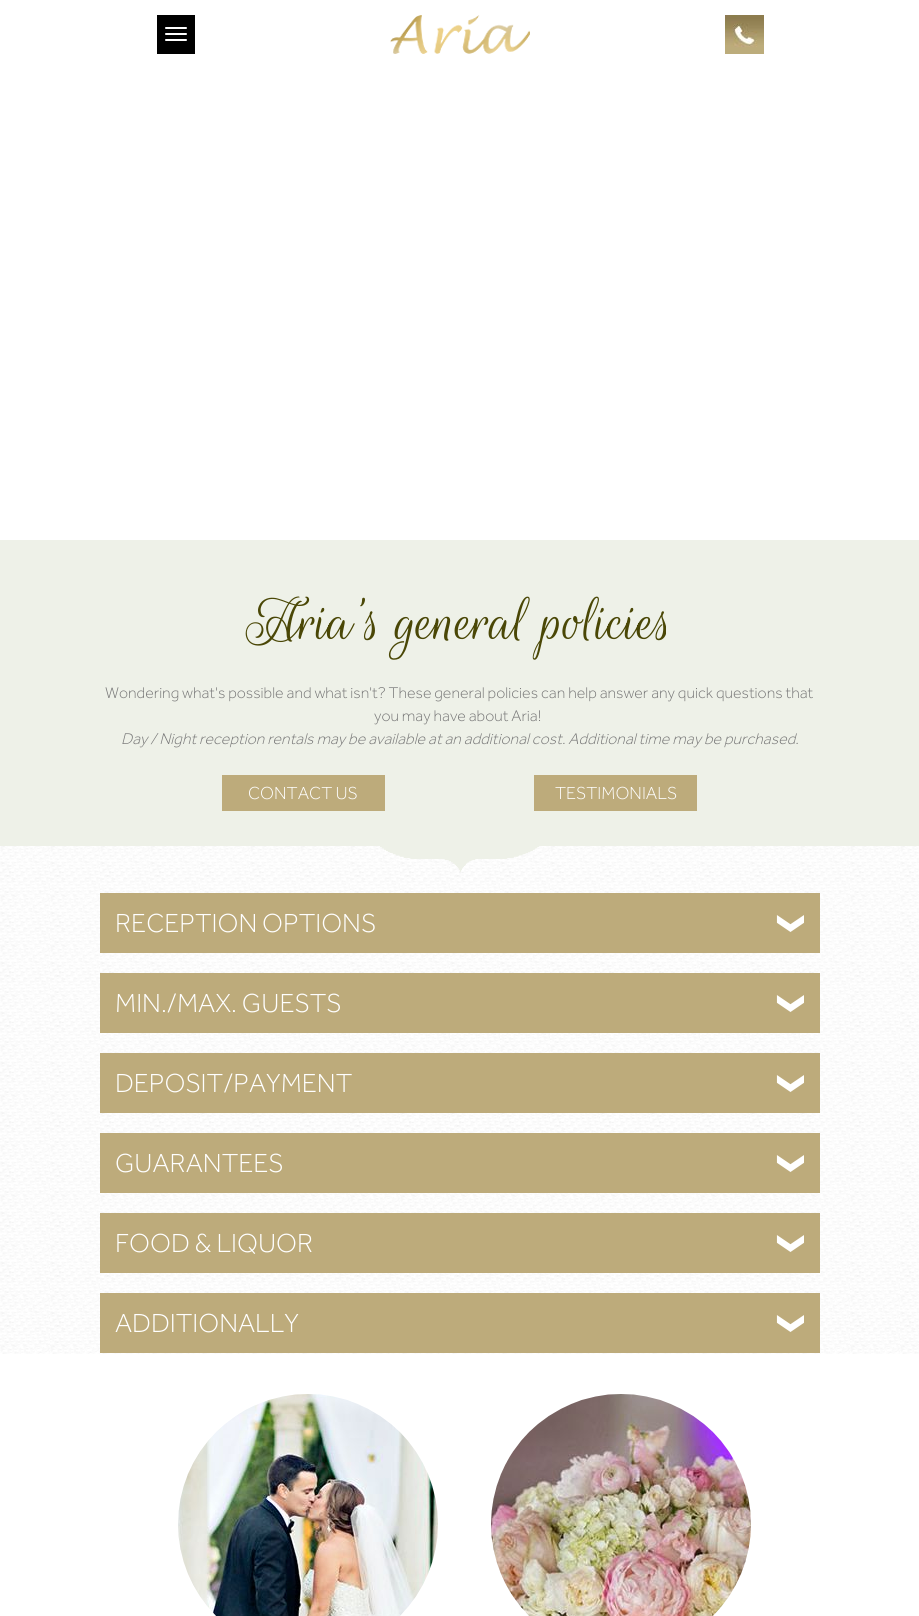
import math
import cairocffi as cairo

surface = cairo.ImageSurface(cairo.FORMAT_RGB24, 919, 1616)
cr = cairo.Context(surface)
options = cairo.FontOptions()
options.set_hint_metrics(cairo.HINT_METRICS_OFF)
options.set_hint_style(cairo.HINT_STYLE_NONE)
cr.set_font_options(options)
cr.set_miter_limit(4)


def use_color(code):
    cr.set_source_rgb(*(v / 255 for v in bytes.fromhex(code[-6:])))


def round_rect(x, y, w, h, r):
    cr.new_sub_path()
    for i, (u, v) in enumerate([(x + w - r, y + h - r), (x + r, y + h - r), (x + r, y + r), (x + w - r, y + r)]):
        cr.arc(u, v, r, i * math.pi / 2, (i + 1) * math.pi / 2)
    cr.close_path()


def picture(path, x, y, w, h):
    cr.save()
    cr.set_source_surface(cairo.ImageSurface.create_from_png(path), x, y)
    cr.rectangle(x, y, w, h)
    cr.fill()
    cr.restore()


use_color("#ffffff")
cr.paint()
use_color("#000000")
cr.rectangle(157, 15, 38, 39)
cr.fill()
use_color("#ffffff")
round_rect(165, 27, 22, 2, 1)
cr.fill()
round_rect(165, 33, 22, 2, 1)
cr.fill()
round_rect(165, 39, 22, 2, 1)
cr.fill()
picture("img1.png", 390, 15, 140, 39)
picture("img2.png", 725, 15, 39, 39)
use_color("#eef1e8")
cr.rectangle(0, 540, 919, 306)
cr.fill()
cr.select_font_face("Rouge Script")
cr.set_font_size(65)
use_color("#4a4706")
cr.move_to(246, 639)
cr.show_text("Aria’s general policies")
cr.select_font_face("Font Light")
cr.set_font_size(16)
use_color("#777777")
cr.move_to(105, 698)
cr.show_text("Wondering what's possible and what isn't? These general policies can help answer any quick questions that")
cr.move_to(374, 721)
cr.show_text("you may have about Aria!")
cr.select_font_face("Font Light", cairo.FONT_SLANT_ITALIC)
cr.move_to(121, 744)
cr.show_text("Day / Night reception rentals may be available at an additional cost. Additional time may be purchased.")
use_color("#bdab7b")
cr.rectangle(222, 775, 163, 36)
cr.fill()
cr.select_font_face("Font Light")
cr.set_font_size(18)
use_color("#ffffff")
cr.move_to(248, 799)
cr.show_text("CONTACT US")
use_color("#bdab7b")
cr.rectangle(534, 775, 163, 36)
cr.fill()
use_color("#ffffff")
cr.move_to(555, 799)
cr.show_text("TESTIMONIALS")
picture("img4.png", 0, 846, 919, 508)
picture("img3.png", 380, 846, 159, 26)
use_color("#bdab7b")
cr.rectangle(100, 893, 720, 60)
cr.fill()
cr.set_font_size(27)
use_color("#ffffff")
cr.move_to(115, 932)
cr.show_text("RECEPTION OPTIONS")
picture("img5.png", 776, 915, 28, 17)
use_color("#bdab7b")
cr.rectangle(100, 973, 720, 60)
cr.fill()
use_color("#ffffff")
cr.move_to(115, 1012)
cr.show_text("MIN./MAX. GUESTS")
picture("img5.png", 776, 995, 28, 17)
use_color("#bdab7b")
cr.rectangle(100, 1053, 720, 60)
cr.fill()
use_color("#ffffff")
cr.move_to(115, 1092)
cr.show_text("DEPOSIT/PAYMENT")
picture("img5.png", 776, 1075, 28, 17)
use_color("#bdab7b")
cr.rectangle(100, 1133, 720, 60)
cr.fill()
use_color("#ffffff")
cr.move_to(115, 1172)
cr.show_text("GUARANTEES")
picture("img5.png", 776, 1155, 28, 17)
use_color("#bdab7b")
cr.rectangle(100, 1213, 720, 60)
cr.fill()
use_color("#ffffff")
cr.move_to(115, 1252)
cr.show_text("FOOD & LIQUOR")
picture("img5.png", 776, 1235, 28, 17)
use_color("#bdab7b")
cr.rectangle(100, 1293, 720, 60)
cr.fill()
use_color("#ffffff")
cr.move_to(115, 1332)
cr.show_text("ADDITIONALLY")
picture("img5.png", 776, 1315, 28, 17)
picture("img6.png", 178, 1394, 260, 222)
picture("img7.png", 491, 1394, 260, 222)
surface.write_to_png("result.png")
